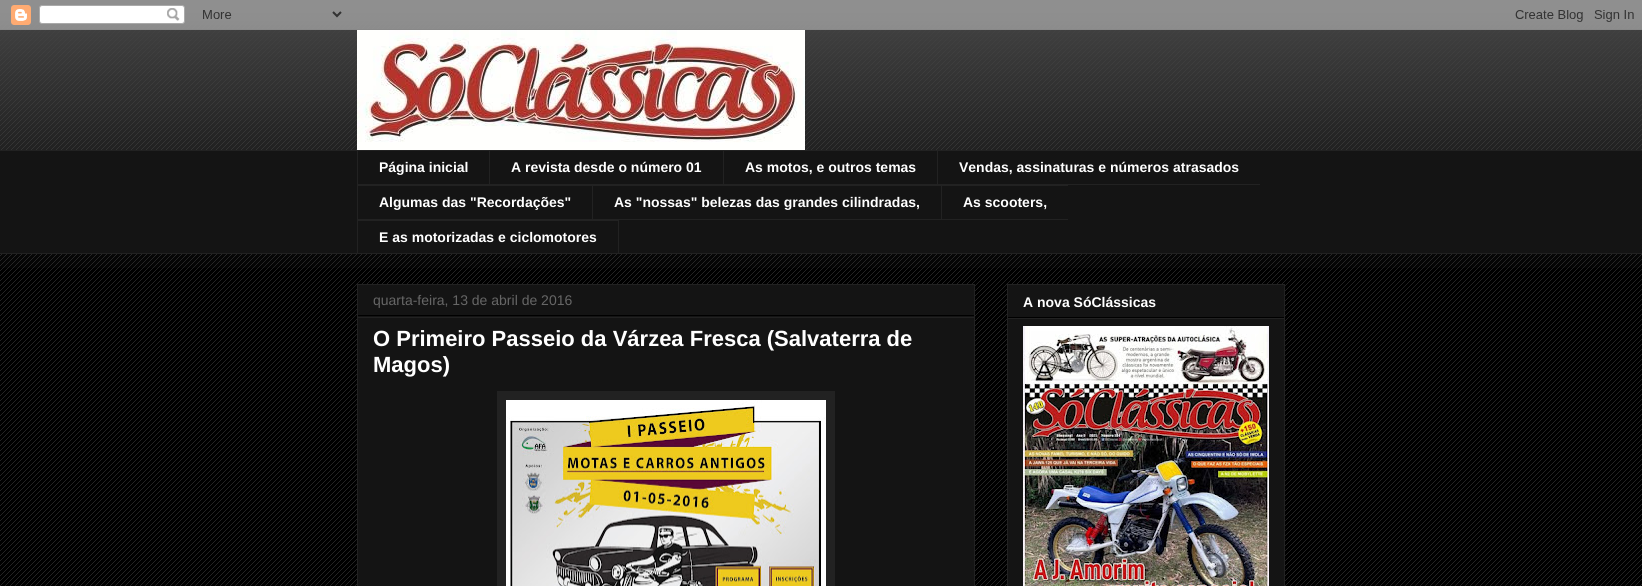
import math
import cairocffi as cairo

surface = cairo.ImageSurface(cairo.FORMAT_RGB24, 1642, 586)
cr = cairo.Context(surface)
options = cairo.FontOptions()
options.set_hint_metrics(cairo.HINT_METRICS_OFF)
options.set_hint_style(cairo.HINT_STYLE_NONE)
cr.set_font_options(options)
cr.set_miter_limit(4)


def use_color(code):
    cr.set_source_rgb(*(v / 255 for v in bytes.fromhex(code[-6:])))


def picture(path, x, y, w, h):
    cr.save()
    cr.set_source_surface(cairo.ImageSurface.create_from_png(path), x, y)
    cr.rectangle(x, y, w, h)
    cr.fill()
    cr.restore()


use_color("#000000")
cr.paint()
picture("img1.png", 0, 13, 1642, 573)
picture("img2.png", 0, 0, 1642, 268)
picture("img3.png", 0, 0, 1642, 30)
picture("img4.png", 357, 30, 448, 120)
use_color("#141414")
cr.rectangle(0, 151, 1642, 102)
cr.fill()
use_color("#222222")
cr.rectangle(0, 150, 1642, 1)
cr.fill()
cr.rectangle(357, 184, 903, 1)
cr.fill()
cr.rectangle(357, 150, 1, 35)
cr.fill()
cr.select_font_face("Liberation Sans", cairo.FONT_SLANT_NORMAL, cairo.FONT_WEIGHT_BOLD)
cr.set_font_size(14)
use_color("#ffffff")
cr.move_to(379, 172)
cr.show_text("Página inicial")
use_color("#222222")
cr.rectangle(489, 150, 1, 35)
cr.fill()
use_color("#ffffff")
cr.move_to(511, 172)
cr.show_text("A revista desde o número 01")
use_color("#222222")
cr.rectangle(723, 150, 1, 35)
cr.fill()
use_color("#ffffff")
cr.move_to(745, 172)
cr.show_text("As motos, e outros temas")
use_color("#222222")
cr.rectangle(937, 150, 1, 35)
cr.fill()
use_color("#ffffff")
cr.move_to(959, 172)
cr.show_text("Vendas, assinaturas e números atrasados")
use_color("#222222")
cr.rectangle(357, 185, 711, 1)
cr.fill()
cr.rectangle(357, 219, 711, 1)
cr.fill()
cr.rectangle(357, 185, 1, 35)
cr.fill()
use_color("#ffffff")
cr.move_to(379, 207)
cr.show_text("Algumas das \"Recordações\"")
use_color("#222222")
cr.rectangle(592, 185, 1, 35)
cr.fill()
use_color("#ffffff")
cr.move_to(614, 207)
cr.show_text("As \"nossas\" belezas das grandes cilindradas,")
use_color("#222222")
cr.rectangle(941, 185, 1, 35)
cr.fill()
use_color("#ffffff")
cr.move_to(963, 207)
cr.show_text("As scooters,")
cr.rectangle(357.5, 220.5, 261, 33)
use_color("#222222")
cr.set_line_width(1)
cr.stroke()
use_color("#ffffff")
cr.move_to(379, 242)
cr.show_text("E as motorizadas e ciclomotores")
use_color("#222222")
cr.rectangle(0, 253, 1642, 1)
cr.fill()
use_color("#141414")
cr.rectangle(357.5, 284.5, 617, 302)
cr.fill_preserve()
use_color("#222222")
cr.stroke()
use_color("#000000")
cr.rectangle(358, 315, 616, 1)
cr.fill()
cr.select_font_face("Liberation Sans")
use_color("#666666")
cr.move_to(373, 305)
cr.show_text("quarta-feira, 13 de abril de 2016")
use_color("#222222")
cr.rectangle(358, 317, 616, 1)
cr.fill()
cr.select_font_face("Liberation Sans", cairo.FONT_SLANT_NORMAL, cairo.FONT_WEIGHT_BOLD)
cr.set_font_size(22)
use_color("#ffffff")
cr.move_to(373, 346)
cr.show_text("O Primeiro Passeio da Várzea Fresca (Salvaterra de")
cr.move_to(373, 372)
cr.show_text("Magos)")
use_color("#222222")
cr.rectangle(497, 391, 338, 195)
cr.fill()
picture("img5.png", 506, 400, 320, 186)
use_color("#141414")
cr.rectangle(1007.5, 284.5, 277, 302)
cr.fill_preserve()
use_color("#222222")
cr.stroke()
use_color("#000000")
cr.rectangle(1008, 317, 276, 1)
cr.fill()
cr.set_font_size(14)
use_color("#ffffff")
cr.move_to(1023, 307)
cr.show_text("A nova SóClássicas")
use_color("#222222")
cr.rectangle(1008, 318, 276, 1)
cr.fill()
picture("img6.png", 1023, 326, 246, 260)
surface.write_to_png("result.png")
